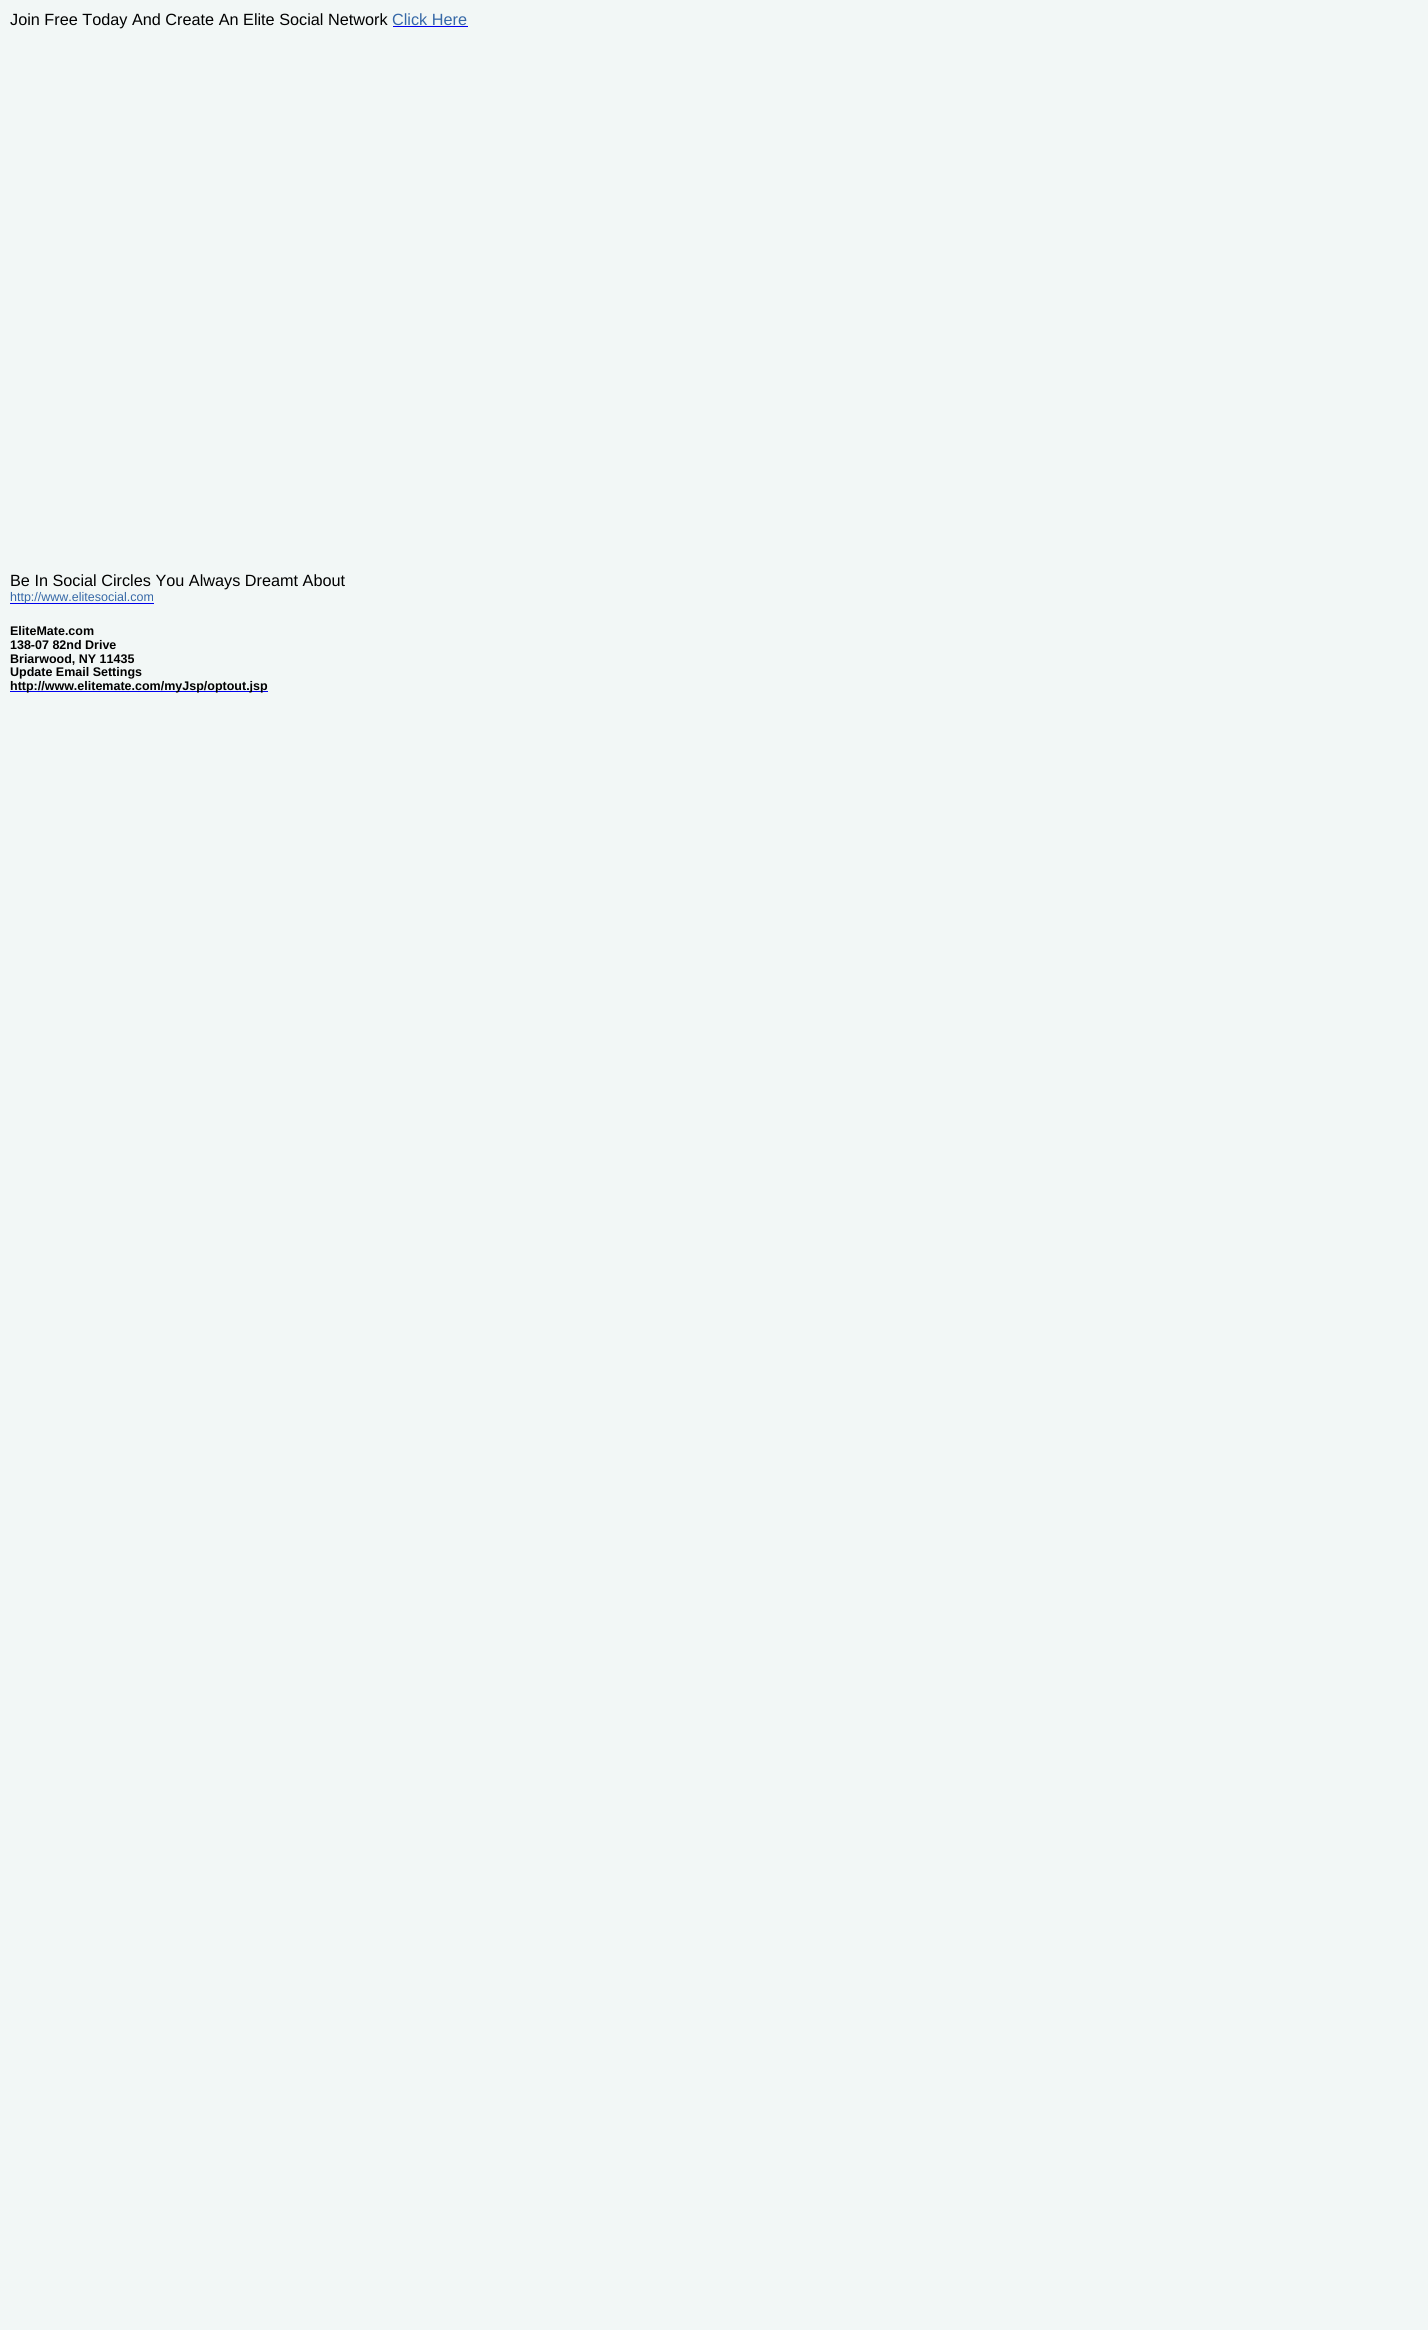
import math
import cairocffi as cairo

surface = cairo.ImageSurface(cairo.FORMAT_RGB24, 1428, 2330)
cr = cairo.Context(surface)
options = cairo.FontOptions()
options.set_hint_metrics(cairo.HINT_METRICS_OFF)
options.set_hint_style(cairo.HINT_STYLE_NONE)
cr.set_font_options(options)
cr.set_miter_limit(4)


def use_color(code):
    cr.set_source_rgb(*(v / 255 for v in bytes.fromhex(code[-6:])))


use_color("#f2f7f6")
cr.paint()
cr.select_font_face("Liberation Sans")
cr.set_font_size(16.25)
use_color("#000000")
cr.move_to(10, 25)
cr.show_text("Join Free Today And Create An Elite Social Network")
use_color("#3668a7")
cr.move_to(392, 25)
cr.show_text("Click Here")
use_color("#0000ee")
cr.rectangle(393, 26, 75, 1)
cr.fill()
use_color("#000000")
cr.move_to(10, 586)
cr.show_text("Be In Social Circles You Always Dreamt About")
use_color("#0000ee")
cr.rectangle(10, 603, 144, 1)
cr.fill()
cr.set_font_size(12.5)
use_color("#3668a7")
cr.move_to(10, 601)
cr.show_text("http://www.elitesocial.com")
cr.select_font_face("Liberation Sans", cairo.FONT_SLANT_NORMAL, cairo.FONT_WEIGHT_BOLD)
use_color("#000000")
cr.move_to(10, 635)
cr.show_text("EliteMate.com")
cr.move_to(10, 649)
cr.show_text("138-07 82nd Drive")
cr.move_to(10, 663)
cr.show_text("Briarwood, NY 11435")
cr.move_to(10, 676)
cr.show_text("Update Email Settings")
use_color("#0000ee")
cr.rectangle(10, 691, 258, 1)
cr.fill()
use_color("#000000")
cr.move_to(10, 690)
cr.show_text("http://www.elitemate.com/myJsp/optout.jsp")
surface.write_to_png("result.png")
